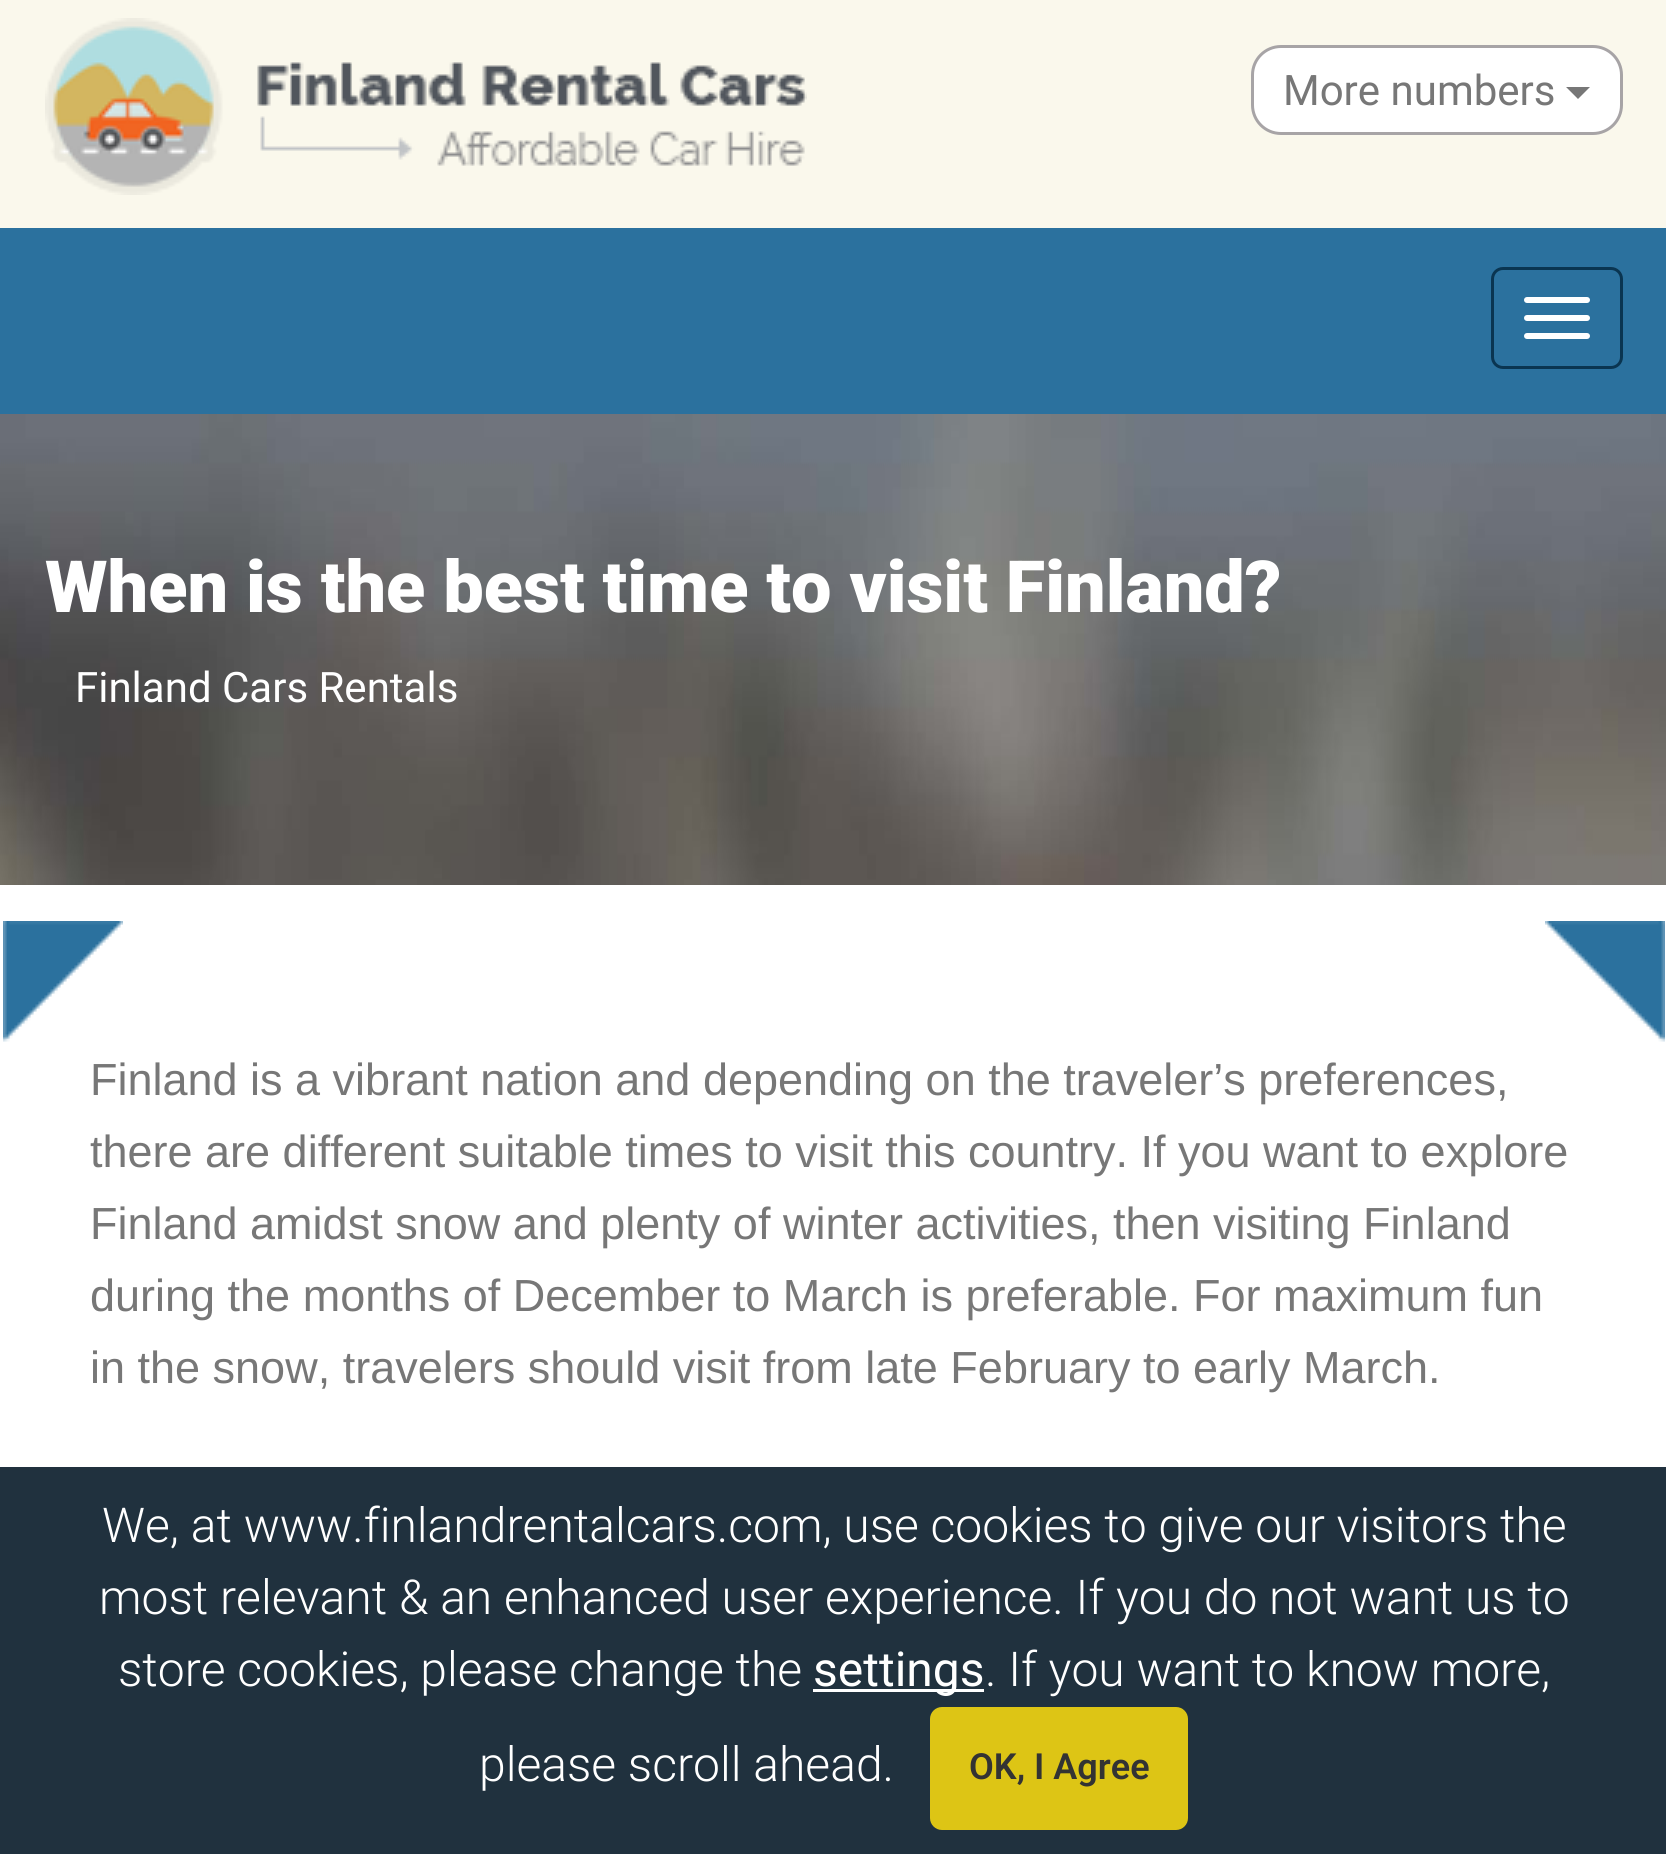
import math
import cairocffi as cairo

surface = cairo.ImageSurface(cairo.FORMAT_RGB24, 1666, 1854)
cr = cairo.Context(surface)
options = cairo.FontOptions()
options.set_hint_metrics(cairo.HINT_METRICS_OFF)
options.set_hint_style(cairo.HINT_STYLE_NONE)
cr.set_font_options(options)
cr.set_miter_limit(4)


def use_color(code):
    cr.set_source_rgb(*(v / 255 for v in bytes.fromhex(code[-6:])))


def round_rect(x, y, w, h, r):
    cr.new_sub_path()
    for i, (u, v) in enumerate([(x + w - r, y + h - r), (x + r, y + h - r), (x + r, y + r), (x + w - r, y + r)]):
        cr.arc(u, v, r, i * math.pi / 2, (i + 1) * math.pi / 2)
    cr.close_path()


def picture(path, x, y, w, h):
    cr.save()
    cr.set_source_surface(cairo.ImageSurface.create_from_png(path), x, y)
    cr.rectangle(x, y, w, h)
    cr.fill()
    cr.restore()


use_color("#faf8ec")
cr.paint()
picture("img1.png", 45, 18, 762, 177)
use_color("#ffffff")
round_rect(1252.5, 46.5, 369, 87, 28.5)
cr.fill_preserve()
use_color("#a7a4a6")
cr.set_line_width(3)
cr.stroke()
cr.select_font_face("Roboto")
cr.set_font_size(42)
use_color("#777777")
cr.move_to(1283, 105)
cr.show_text("More numbers")
cr.new_path()
cr.move_to(1566, 87)
cr.line_to(1590, 87)
cr.line_to(1578, 99)
cr.close_path()
cr.fill()
use_color("#2b719e")
cr.rectangle(0, 228, 1666, 186)
cr.fill()
round_rect(1492.5, 268.5, 129, 99, 10.5)
use_color("#0a3551")
cr.stroke()
use_color("#ffffff")
round_rect(1524, 297, 66, 6, 3)
cr.fill()
round_rect(1524, 315, 66, 6, 3)
cr.fill()
round_rect(1524, 333, 66, 6, 3)
cr.fill()
picture("img2.png", 0, 414, 1666, 471)
cr.select_font_face("Roboto Black")
cr.set_font_size(72)
cr.move_to(45, 612)
cr.show_text("When is the best time to visit Finland?")
cr.select_font_face("Roboto")
cr.set_font_size(42)
cr.move_to(75, 702)
cr.show_text("Finland Cars Rentals")
cr.rectangle(0, 885, 1666, 969)
cr.fill()
picture("img3.png", 3, 921, 120, 121)
picture("img4.png", 1545, 921, 120, 121)
cr.select_font_face("Liberation Sans")
cr.set_font_size(45)
use_color("#777777")
cr.move_to(90, 1095)
cr.show_text("Finland is a vibrant nation and depending on the traveler’s preferences,")
cr.move_to(90, 1167)
cr.show_text("there are different suitable times to visit this country. If you want to explore")
cr.move_to(90, 1239)
cr.show_text("Finland amidst snow and plenty of winter activities, then visiting Finland")
cr.move_to(90, 1311)
cr.show_text("during the months of December to March is preferable. For maximum fun")
cr.move_to(90, 1383)
cr.show_text("in the snow, travelers should visit from late February to early March.")
cr.set_source_rgba(0.031, 0.106, 0.161, 0.9)
cr.rectangle(0, 1467, 1666, 387)
cr.fill()
cr.select_font_face("Roboto Light")
cr.set_font_size(48)
use_color("#ffffff")
cr.move_to(102, 1542)
cr.show_text("We, at www.finlandrentalcars.com, use cookies to give our visitors the")
cr.move_to(99, 1614)
cr.show_text("most relevant & an enhanced user experience. If you do not want us to")
cr.move_to(118, 1686)
cr.show_text("store cookies, please change the")
cr.rectangle(813, 1689, 171, 3)
cr.fill()
cr.select_font_face("Roboto")
cr.move_to(813, 1686)
cr.show_text("settings")
cr.select_font_face("Roboto Light")
cr.move_to(985, 1686)
cr.show_text(". If you want to know more,")
cr.move_to(479, 1781)
cr.show_text("please scroll ahead.")
use_color("#ddc515")
round_rect(930, 1707, 258, 123, 12)
cr.fill()
cr.select_font_face("Roboto SemiBold")
cr.set_font_size(36)
use_color("#333333")
cr.move_to(969, 1779)
cr.show_text("OK, I Agree")
surface.write_to_png("result.png")
